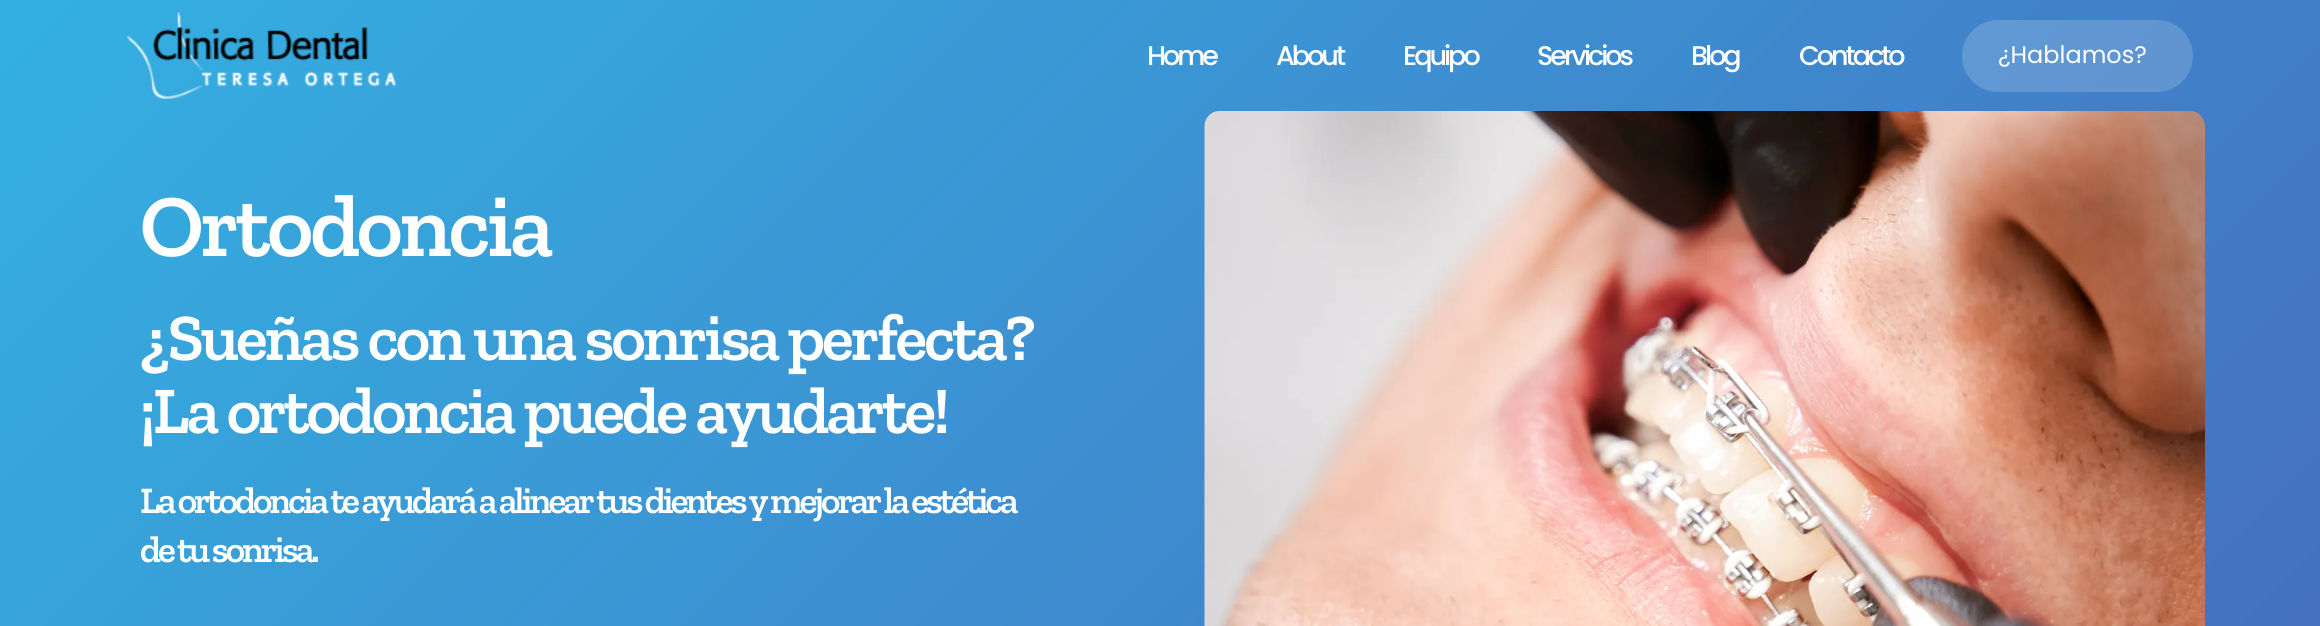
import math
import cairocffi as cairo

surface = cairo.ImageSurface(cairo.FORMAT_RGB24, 2320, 626)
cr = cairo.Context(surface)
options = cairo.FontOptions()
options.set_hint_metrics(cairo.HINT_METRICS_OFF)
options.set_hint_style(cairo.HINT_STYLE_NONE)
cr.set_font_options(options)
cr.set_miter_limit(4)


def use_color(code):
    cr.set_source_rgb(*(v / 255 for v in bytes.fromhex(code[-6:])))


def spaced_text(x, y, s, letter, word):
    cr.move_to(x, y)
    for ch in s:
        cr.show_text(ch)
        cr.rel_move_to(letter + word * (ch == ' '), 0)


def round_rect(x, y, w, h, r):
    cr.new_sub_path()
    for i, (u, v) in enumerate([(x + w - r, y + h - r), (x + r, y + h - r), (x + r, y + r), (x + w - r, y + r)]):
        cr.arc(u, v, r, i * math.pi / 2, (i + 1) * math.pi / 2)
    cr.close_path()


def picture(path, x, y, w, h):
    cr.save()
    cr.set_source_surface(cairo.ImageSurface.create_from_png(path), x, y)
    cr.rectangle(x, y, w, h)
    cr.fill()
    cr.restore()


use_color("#ffffff")
cr.paint()
gradient = cairo.LinearGradient(280, -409, 2040, 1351)
gradient.add_color_stop_rgba(0, 0.2, 0.702, 0.89, 1)
gradient.add_color_stop_rgba(1, 0.282, 0.4, 0.737, 1)
cr.set_source(gradient)
cr.rectangle(0, 0, 2320, 626)
cr.fill()
picture("img1.png", 127, 12, 269, 87)
cr.select_font_face("Poppins Medium")
cr.set_font_size(27)
use_color("#ffffff")
spaced_text(1147, 65, "Home", -3, 0)
spaced_text(1276, 65, "About", -3, 0)
spaced_text(1403, 65, "Equipo", -3, 0)
spaced_text(1537, 65, "Servicios", -3, 0)
spaced_text(1691, 65, "Blog", -3, 0)
spaced_text(1799, 65, "Contacto", -3, 0)
cr.set_source_rgba(1, 1, 1, 0.17)
round_rect(1962, 20, 231, 72, 36)
cr.fill()
cr.select_font_face("Poppins")
cr.set_font_size(24)
use_color("#ffffff")
cr.move_to(1998, 63)
cr.show_text("¿Hablamos?")
cr.select_font_face("Zilla Slab SemiBold")
cr.set_font_size(88.5)
spaced_text(140, 256, "Ortodoncia", -3, 0)
cr.set_font_size(66.25)
spaced_text(140, 360, "¿Sueñas con una sonrisa perfecta?", -3, 0)
spaced_text(140, 433, "¡La ortodoncia puede ayudarte!", -3, 0)
cr.set_font_size(37.3)
spaced_text(140, 513, "La ortodoncia te ayudará a alinear tus dientes y mejorar la estética", -3, 0)
spaced_text(140, 562, "de tu sonrisa.", -3, 0)
picture("img2.png", 1204, 111, 1001, 515)
surface.write_to_png("result.png")
